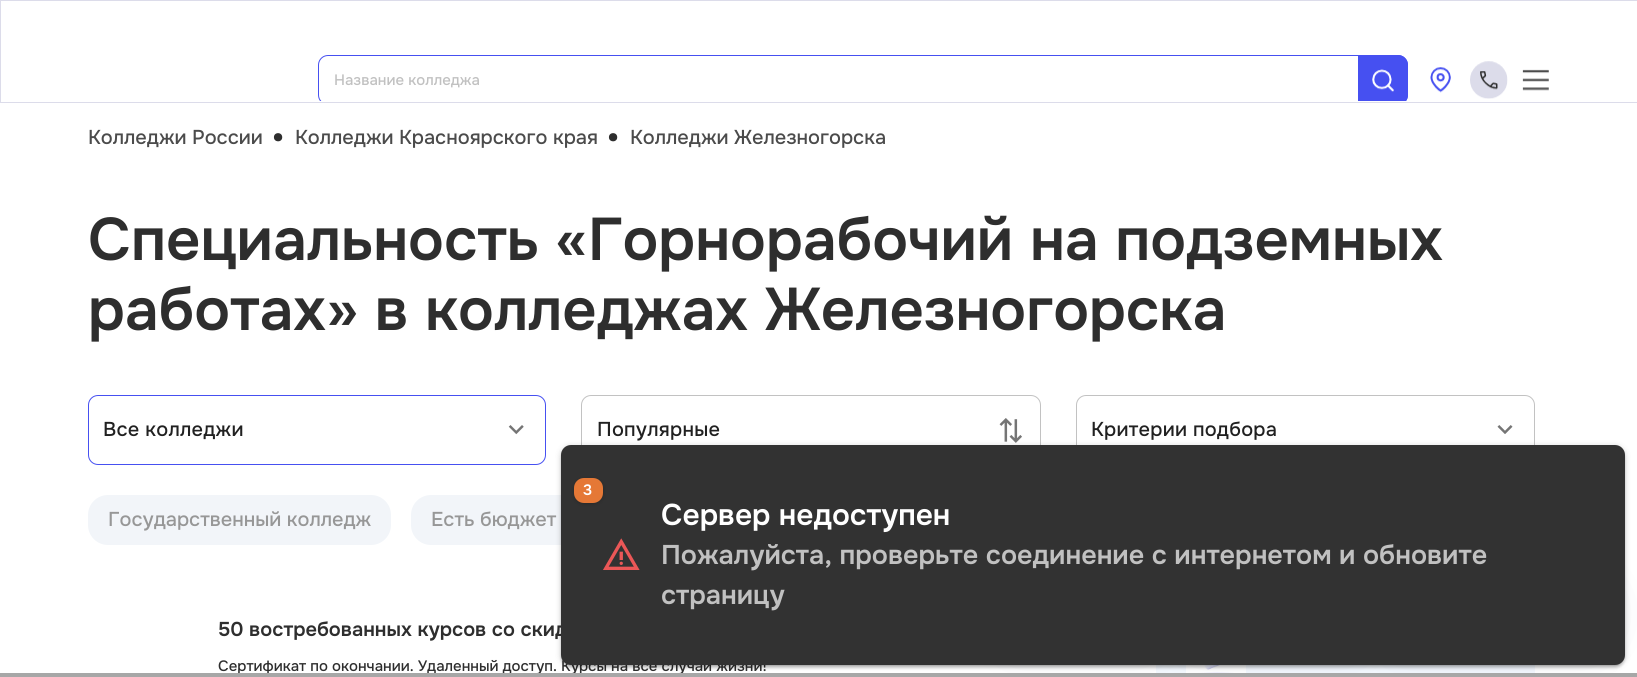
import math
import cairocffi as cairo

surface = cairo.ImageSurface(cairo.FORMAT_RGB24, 1637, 677)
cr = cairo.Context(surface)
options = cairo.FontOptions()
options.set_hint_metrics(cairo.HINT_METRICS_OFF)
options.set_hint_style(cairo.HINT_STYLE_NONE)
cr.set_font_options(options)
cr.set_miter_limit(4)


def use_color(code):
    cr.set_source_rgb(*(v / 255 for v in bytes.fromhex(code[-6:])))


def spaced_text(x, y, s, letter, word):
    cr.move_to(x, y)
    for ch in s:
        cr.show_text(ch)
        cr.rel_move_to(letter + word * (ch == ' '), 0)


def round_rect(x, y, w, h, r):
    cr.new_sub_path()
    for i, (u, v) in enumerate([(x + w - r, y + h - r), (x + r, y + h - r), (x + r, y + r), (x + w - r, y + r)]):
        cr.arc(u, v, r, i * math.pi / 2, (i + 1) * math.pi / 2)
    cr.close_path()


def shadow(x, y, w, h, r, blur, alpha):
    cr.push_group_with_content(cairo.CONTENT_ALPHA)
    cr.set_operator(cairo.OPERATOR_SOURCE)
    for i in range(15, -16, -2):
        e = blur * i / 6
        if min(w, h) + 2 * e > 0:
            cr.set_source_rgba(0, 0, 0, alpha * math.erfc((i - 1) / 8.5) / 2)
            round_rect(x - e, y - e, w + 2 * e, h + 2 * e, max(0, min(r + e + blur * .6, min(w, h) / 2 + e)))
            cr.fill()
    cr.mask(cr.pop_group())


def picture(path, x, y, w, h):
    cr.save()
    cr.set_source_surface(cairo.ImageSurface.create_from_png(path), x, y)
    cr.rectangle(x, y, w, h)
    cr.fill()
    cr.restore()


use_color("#ffffff")
cr.paint()
cr.rectangle(0.5, 0.5, 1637, 102)
use_color("#dcdcea")
cr.set_line_width(1)
cr.stroke()
cr.save()
cr.rectangle(38, 1, 1562, 100)
cr.clip()
round_rect(318.5, 55.5, 1089, 49, 9.5)
use_color("#4650f1")
cr.stroke()
cr.restore()
cr.select_font_face("Onest Medium")
cr.set_font_size(15)
use_color("#c1c1c1")
cr.move_to(334, 85)
cr.show_text("Название колледжа")
cr.save()
cr.rectangle(38, 1, 1562, 100)
cr.clip()
use_color("#4650f1")
cr.new_path()
cr.move_to(1358, 55)
cr.line_to(1398, 55)
cr.curve_to(1403.5, 55, 1408, 59.5, 1408, 65)
cr.line_to(1408, 95)
cr.curve_to(1408, 100.5, 1403.5, 105, 1398, 105)
cr.line_to(1358, 105)
cr.close_path()
cr.fill()
cr.restore()
picture("img1.png", 1372, 69, 22, 23)
picture("img2.png", 1430, 67, 21, 26)
picture("img3.png", 1470, 61, 38, 38)
picture("img4.png", 1522, 69, 27, 22)
cr.set_font_size(20)
use_color("#4b4b4b")
cr.move_to(88, 144)
cr.show_text("Колледжи России")
cr.set_font_size(35)
use_color("#2e2e2e")
cr.move_to(272, 150)
cr.show_text("•")
cr.set_font_size(20)
use_color("#4b4b4b")
cr.move_to(295, 144)
cr.show_text("Колледжи Красноярского края")
cr.set_font_size(35)
use_color("#2e2e2e")
cr.move_to(607, 150)
cr.show_text("•")
cr.set_font_size(20)
use_color("#4b4b4b")
cr.move_to(630, 144)
cr.show_text("Колледжи Железногорска")
cr.select_font_face("Onest SemiBold")
cr.set_font_size(60)
use_color("#2e2e2e")
cr.move_to(88, 260)
cr.show_text("Специальность «Горнорабочий на подземных")
cr.move_to(88, 330)
cr.show_text("работах» в колледжах Железногорска")
round_rect(88.5, 395.5, 457, 69, 9.5)
use_color("#4650f1")
cr.stroke()
cr.select_font_face("Onest Medium")
cr.set_font_size(20)
use_color("#212121")
spaced_text(103, 436, "Все колледжи", 0.25, 0)
picture("img5.png", 508, 425, 16, 10)
round_rect(581.5, 395.5, 459, 69, 9.5)
use_color("#c2c2c2")
cr.stroke()
use_color("#212121")
spaced_text(597, 436, "Популярные", 0.25, 0)
picture("img6.png", 999, 418, 23, 25)
round_rect(1076.5, 395.5, 458, 69, 9.5)
use_color("#c2c2c2")
cr.stroke()
use_color("#212121")
spaced_text(1091, 436, "Критерии подбора", 0.25, 0)
picture("img7.png", 1497, 425, 16, 9)
use_color("#f2f5f9")
round_rect(88, 495, 303, 50, 20)
cr.fill()
use_color("#979797")
cr.move_to(108, 526)
cr.show_text("Государственный колледж")
use_color("#f2f5f9")
round_rect(411, 495, 265, 50, 20)
cr.fill()
use_color("#979797")
cr.move_to(431, 526)
cr.show_text("Есть бюджет")
cr.select_font_face("Onest SemiBold")
use_color("#2e2e2e")
cr.move_to(218, 636)
cr.show_text("50 востребованных курсов со скид")
cr.select_font_face("Onest Medium")
cr.set_font_size(15)
cr.move_to(218, 671)
cr.show_text("Сертификат по окончании. Удаленный доступ. Курсы на все случаи жизни!")
use_color("#f3f8fe")
cr.rectangle(1156, 665, 379, 8)
cr.fill()
use_color("#ffffff")
cr.rectangle(1186, 665, 60, 8)
cr.fill()
picture("img8.png", 1197, 665, 39, 8)
use_color("#949bad")
shadow(999, 580, 161, 68, 34, 20, 0.32)
shadow(1180, 580, 185, 68, 34, 20, 0.32)
shadow(1385, 580, 223, 68, 34, 20, 0.32)
use_color("#000000")
shadow(561, 446, 1064, 220, 10, 3, 0.2)
use_color("#a7a7a7")
cr.rectangle(0, 673, 1637, 4)
cr.fill()
use_color("#000000")
shadow(564, 451, 1059, 215, 8, 0.5, 0.12)
shadow(561, 448, 1064, 220, 10, 1, 0.14)
use_color("#323232")
round_rect(561, 445, 1064, 220, 10)
cr.fill()
use_color("#000000")
shadow(574, 479, 29, 25, 10, 2, 0.2)
use_color("#e57836")
round_rect(574, 478, 29, 25, 10)
cr.fill()
cr.select_font_face("Onest SemiBold")
use_color("#ffffff")
cr.move_to(583, 495)
cr.show_text("3")
picture("img9.png", 603, 538, 37, 32)
cr.set_font_size(30)
cr.move_to(661, 525)
cr.show_text("Сервер недоступен")
cr.set_font_size(27)
use_color("#c1c1c1")
cr.move_to(661, 564)
cr.show_text("Пожалуйста, проверьте соединение с интернетом и обновите")
cr.move_to(661, 604)
cr.show_text("страницу")
surface.write_to_png("result.png")
